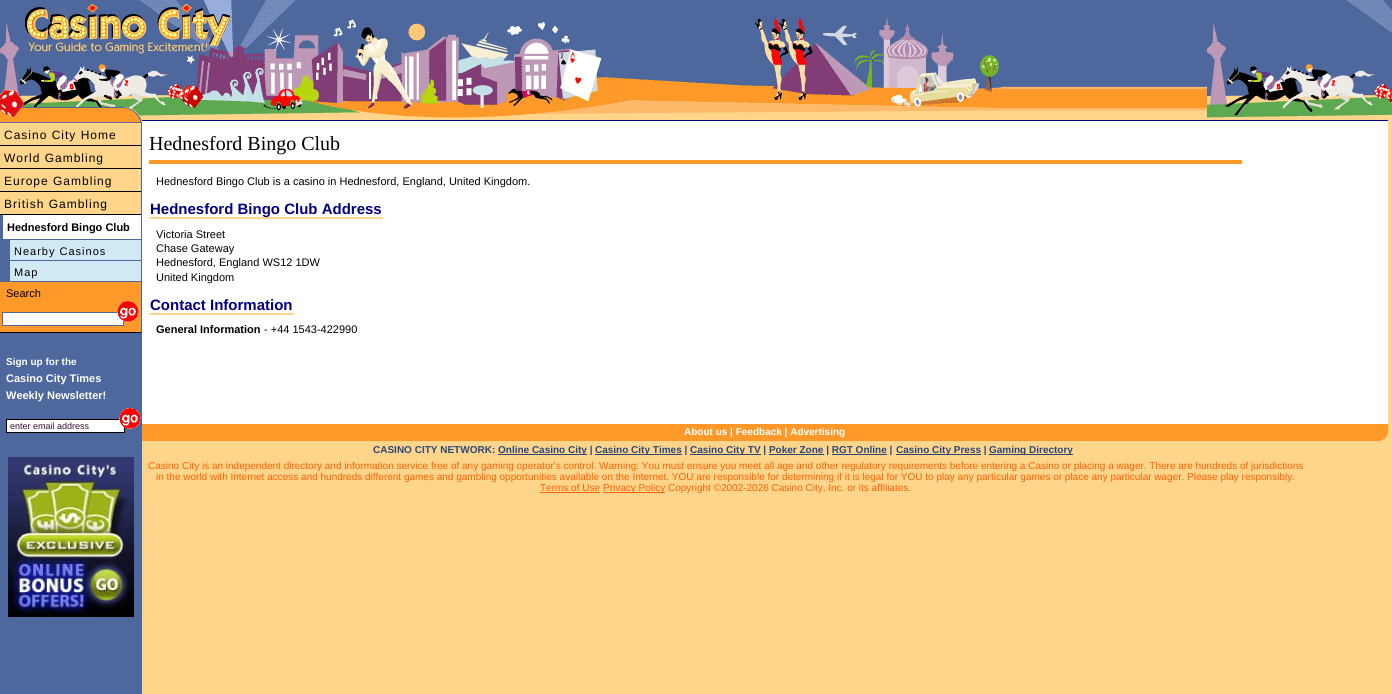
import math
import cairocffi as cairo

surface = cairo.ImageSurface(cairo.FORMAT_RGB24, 1392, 694)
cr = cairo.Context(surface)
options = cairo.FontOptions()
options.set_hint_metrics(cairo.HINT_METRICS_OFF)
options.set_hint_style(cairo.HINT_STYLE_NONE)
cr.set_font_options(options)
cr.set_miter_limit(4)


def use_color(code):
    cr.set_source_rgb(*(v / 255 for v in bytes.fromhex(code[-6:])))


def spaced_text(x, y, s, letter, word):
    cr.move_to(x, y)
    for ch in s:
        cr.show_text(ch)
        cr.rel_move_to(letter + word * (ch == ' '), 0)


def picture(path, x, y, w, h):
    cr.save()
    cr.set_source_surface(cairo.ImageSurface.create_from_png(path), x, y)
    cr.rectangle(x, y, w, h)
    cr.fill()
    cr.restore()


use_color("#ffffff")
cr.paint()
picture("img1.png", 0, 121, 1392, 573)
picture("img2.png", 0, 0, 1392, 121)
picture("img3.png", 25, 4, 205, 50)
picture("img4.png", 0, 90, 142, 33)
use_color("#fed58a")
cr.rectangle(0, 123, 141, 22)
cr.fill()
use_color("#000000")
cr.rectangle(0, 145, 141, 1)
cr.fill()
cr.select_font_face("Liberation Sans")
cr.set_font_size(12)
spaced_text(4, 139, "Casino City Home", 1, 0)
use_color("#fed58a")
cr.rectangle(0, 146, 141, 22)
cr.fill()
use_color("#000000")
cr.rectangle(0, 168, 141, 1)
cr.fill()
spaced_text(4, 162, "World Gambling", 1, 0)
use_color("#fed58a")
cr.rectangle(0, 169, 141, 22)
cr.fill()
use_color("#000000")
cr.rectangle(0, 191, 141, 1)
cr.fill()
spaced_text(4, 185, "Europe Gambling", 1, 0)
use_color("#fed58a")
cr.rectangle(0, 192, 141, 22)
cr.fill()
use_color("#000000")
cr.rectangle(0, 214, 141, 1)
cr.fill()
spaced_text(4, 208, "British Gambling", 1, 0)
use_color("#ffffff")
cr.rectangle(3, 215, 138, 24)
cr.fill()
cr.select_font_face("Liberation Sans", cairo.FONT_SLANT_NORMAL, cairo.FONT_WEIGHT_BOLD)
cr.set_font_size(11)
use_color("#000000")
cr.move_to(7, 231)
cr.show_text("Hednesford Bingo Club")
use_color("#d1e9f4")
cr.rectangle(10, 240, 131, 20)
cr.fill()
cr.select_font_face("Liberation Sans")
use_color("#000000")
spaced_text(14, 255, "Nearby Casinos", 1, 0)
use_color("#d1e9f4")
cr.rectangle(10, 261, 131, 20)
cr.fill()
use_color("#000000")
spaced_text(14, 276, "Map", 1, 0)
use_color("#fe9929")
cr.rectangle(0, 282, 141, 50)
cr.fill()
use_color("#000000")
cr.rectangle(0, 332, 141, 1)
cr.fill()
cr.move_to(6, 297)
cr.show_text("Search")
use_color("#ffffff")
cr.rectangle(2.5, 312.5, 121, 13)
cr.fill_preserve()
use_color("#4e679d")
cr.set_line_width(1)
cr.stroke()
picture("img5.png", 117, 301, 22, 21)
cr.select_font_face("Liberation Sans", cairo.FONT_SLANT_NORMAL, cairo.FONT_WEIGHT_BOLD)
cr.set_font_size(10)
use_color("#ffffff")
cr.move_to(6, 365)
cr.show_text("Sign up for the")
cr.set_font_size(11)
cr.move_to(6, 382)
cr.show_text("Casino City Times")
cr.move_to(6, 399)
cr.show_text("Weekly Newsletter!")
cr.rectangle(6.5, 419.5, 118, 13)
cr.fill_preserve()
use_color("#000000")
cr.stroke()
cr.select_font_face("Liberation Sans")
cr.set_font_size(9)
use_color("#391133")
cr.move_to(10, 429)
cr.show_text("enter email address")
picture("img6.png", 119, 408, 22, 21)
picture("img7.png", 8, 457, 126, 160)
use_color("#ffffff")
cr.rectangle(142, 121, 1246, 303)
cr.fill()
use_color("#000080")
cr.rectangle(142, 120, 1246, 1)
cr.fill()
cr.select_font_face("Liberation Serif")
cr.set_font_size(20)
use_color("#000000")
cr.move_to(149, 150)
cr.show_text("Hednesford Bingo Club")
use_color("#fe9929")
cr.rectangle(149, 160, 1093, 4)
cr.fill()
cr.select_font_face("Liberation Sans")
cr.set_font_size(11)
use_color("#000000")
cr.move_to(156, 185)
cr.show_text("Hednesford Bingo Club is a casino in Hednesford, England, United Kingdom.")
use_color("#fed58a")
cr.rectangle(149, 217, 234, 2)
cr.fill()
cr.select_font_face("Liberation Sans", cairo.FONT_SLANT_NORMAL, cairo.FONT_WEIGHT_BOLD)
cr.set_font_size(15)
use_color("#000080")
cr.move_to(150, 214)
cr.show_text("Hednesford Bingo Club Address")
cr.select_font_face("Liberation Sans")
cr.set_font_size(11)
use_color("#000000")
cr.move_to(156, 238)
cr.show_text("Victoria Street")
cr.move_to(156, 252)
cr.show_text("Chase Gateway")
cr.move_to(156, 266)
cr.show_text("Hednesford, England WS12 1DW")
cr.move_to(156, 281)
cr.show_text("United Kingdom")
cr.select_font_face("Liberation Sans", cairo.FONT_SLANT_NORMAL, cairo.FONT_WEIGHT_BOLD)
cr.set_font_size(15)
use_color("#000080")
cr.move_to(150, 310)
cr.show_text("Contact Information")
use_color("#fed58a")
cr.rectangle(149, 313, 145, 2)
cr.fill()
cr.set_font_size(11)
use_color("#000000")
cr.move_to(156, 333)
cr.show_text("General Information")
cr.select_font_face("Liberation Sans")
cr.move_to(264, 333)
cr.show_text("- +44 1543-422990")
use_color("#fe9929")
cr.rectangle(142, 424, 1246, 17)
cr.fill()
picture("img8.png", 1381, 434, 7, 7)
cr.select_font_face("Liberation Sans", cairo.FONT_SLANT_NORMAL, cairo.FONT_WEIGHT_BOLD)
cr.set_font_size(10)
use_color("#ffffff")
cr.move_to(684, 435)
cr.show_text("About us | Feedback | Advertising")
use_color("#2a4679")
cr.move_to(373, 453)
cr.show_text("CASINO CITY NETWORK:")
cr.rectangle(498, 454, 89, 1)
cr.fill()
cr.move_to(498, 453)
cr.show_text("Online Casino City |")
cr.rectangle(595, 454, 87, 1)
cr.fill()
cr.move_to(595, 453)
cr.show_text("Casino City Times |")
cr.rectangle(690, 454, 71, 1)
cr.fill()
cr.move_to(690, 453)
cr.show_text("Casino City TV | Poker Zone | RGT Online |")
cr.rectangle(896, 454, 85, 1)
cr.fill()
cr.move_to(896, 453)
cr.show_text("Casino City Press |")
cr.rectangle(989, 454, 84, 1)
cr.fill()
cr.move_to(989, 453)
cr.show_text("Gaming Directory")
cr.rectangle(769, 454, 55, 1)
cr.fill()
cr.rectangle(832, 454, 55, 1)
cr.fill()
use_color("#fed58a")
cr.rectangle(582, 455, 487, 1)
cr.fill()
cr.select_font_face("Liberation Sans")
use_color("#fd6002")
cr.move_to(148, 469)
cr.show_text("Casino City is an independent directory and information service free of any gaming operator's control. Warning: You must ensure you meet all age and other regulatory requirements before entering a Casino or placing a wager. There are hundreds of jurisdictions")
cr.move_to(156, 480)
cr.show_text("in the world with Internet access and hundreds different games and gambling opportunities available on the Internet. YOU are responsible for determining if it is legal for YOU to play any particular games or place any particular wager. Please play responsibly.")
cr.move_to(540, 491)
cr.show_text("Terms of Use")
cr.rectangle(540, 492, 60, 1)
cr.fill()
cr.rectangle(603, 492, 62, 1)
cr.fill()
cr.move_to(603, 491)
cr.show_text("Privacy Policy Copyright ©2002-2026 Casino City, Inc. or its affiliates.")
surface.write_to_png("result.png")
